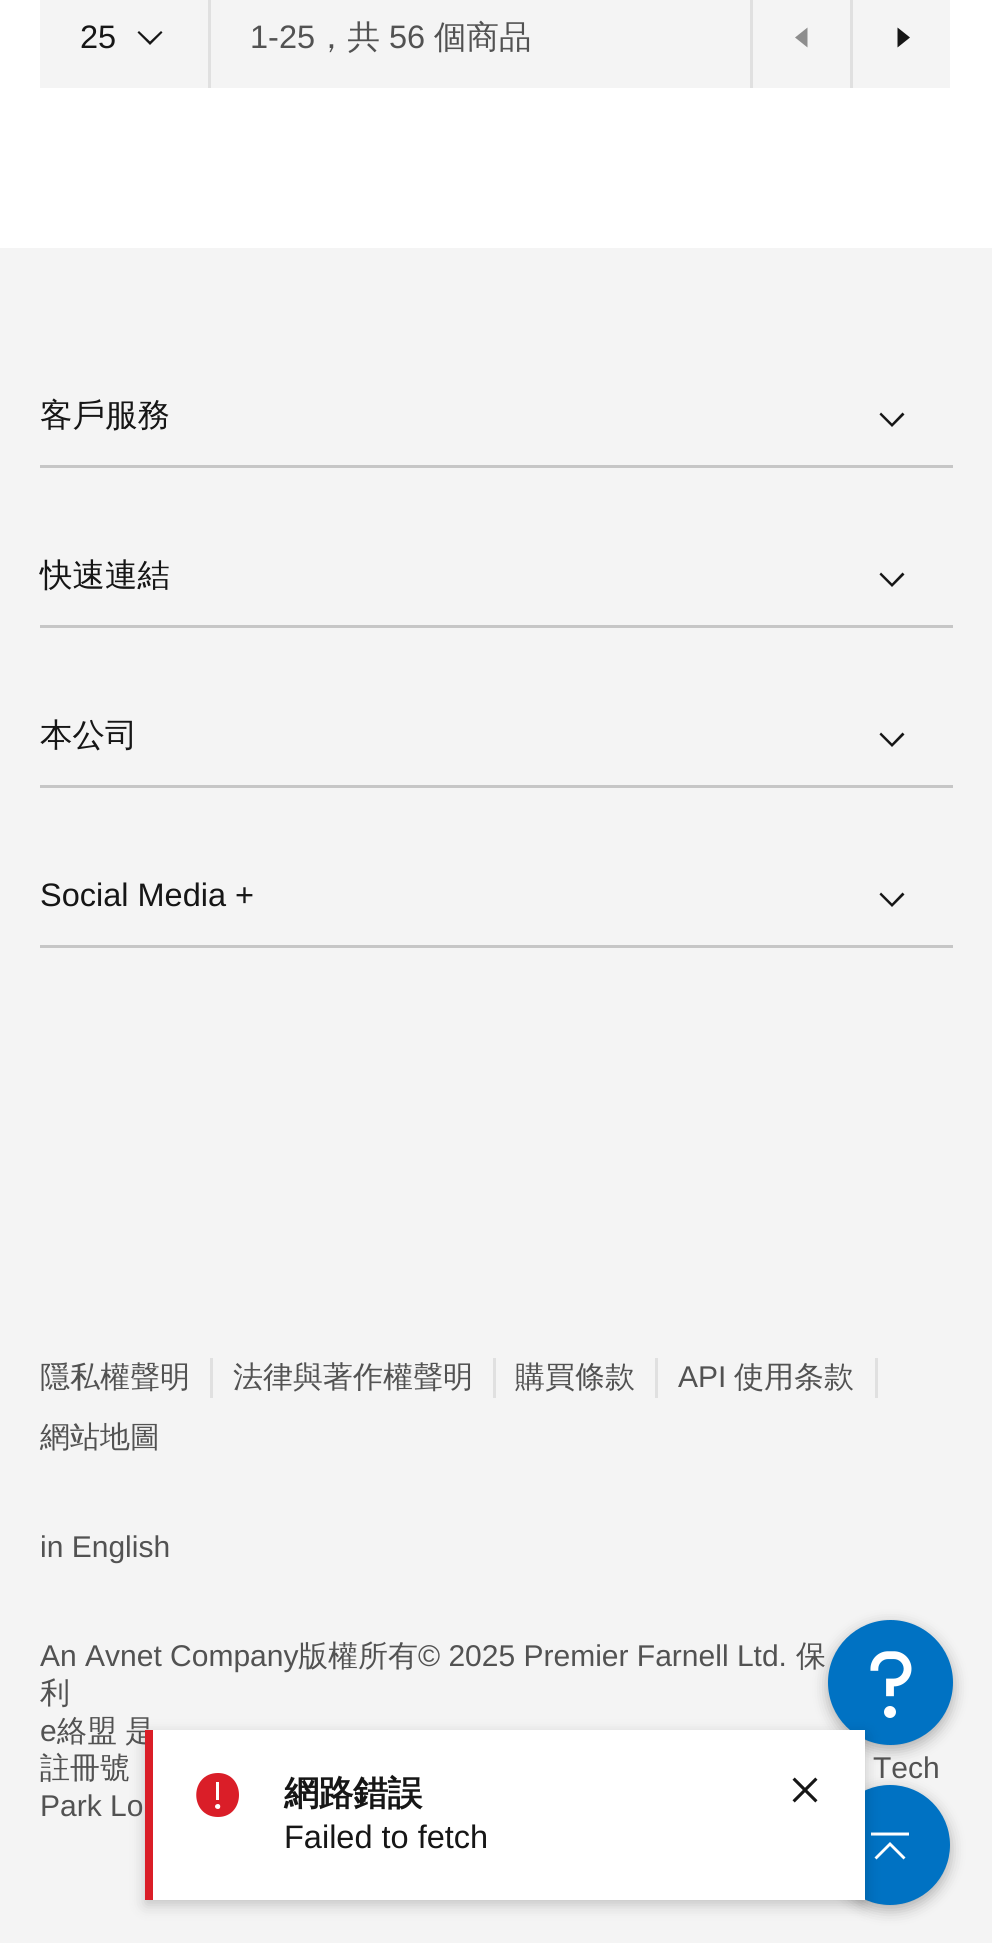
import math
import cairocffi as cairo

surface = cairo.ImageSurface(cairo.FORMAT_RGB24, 992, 1943)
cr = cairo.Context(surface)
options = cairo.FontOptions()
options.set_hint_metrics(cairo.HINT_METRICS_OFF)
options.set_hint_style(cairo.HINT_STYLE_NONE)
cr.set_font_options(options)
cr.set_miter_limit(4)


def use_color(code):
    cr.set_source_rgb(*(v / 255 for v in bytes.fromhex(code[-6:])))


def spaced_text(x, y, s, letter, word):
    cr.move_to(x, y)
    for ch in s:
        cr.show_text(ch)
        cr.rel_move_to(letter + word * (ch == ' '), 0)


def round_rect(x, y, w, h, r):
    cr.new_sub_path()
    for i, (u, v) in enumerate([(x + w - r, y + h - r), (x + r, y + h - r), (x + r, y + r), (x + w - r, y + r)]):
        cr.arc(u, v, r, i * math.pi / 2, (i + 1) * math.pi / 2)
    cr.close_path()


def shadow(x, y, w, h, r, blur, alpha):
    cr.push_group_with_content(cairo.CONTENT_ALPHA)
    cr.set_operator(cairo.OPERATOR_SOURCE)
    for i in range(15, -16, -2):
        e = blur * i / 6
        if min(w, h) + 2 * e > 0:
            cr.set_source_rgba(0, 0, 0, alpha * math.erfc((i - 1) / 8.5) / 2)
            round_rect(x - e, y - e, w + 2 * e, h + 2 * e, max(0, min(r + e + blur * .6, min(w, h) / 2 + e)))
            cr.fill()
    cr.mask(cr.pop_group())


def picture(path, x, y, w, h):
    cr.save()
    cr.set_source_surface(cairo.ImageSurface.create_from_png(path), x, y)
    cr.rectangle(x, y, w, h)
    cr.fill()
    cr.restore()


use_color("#ffffff")
cr.paint()
use_color("#f4f4f4")
cr.rectangle(40, 0, 910, 88)
cr.fill()
use_color("#e0e0e0")
cr.rectangle(208, 0, 3, 88)
cr.fill()
cr.select_font_face("Liberation Sans")
cr.set_font_size(32.5)
use_color("#161616")
cr.move_to(80, 48)
cr.show_text("25")
cr.new_path()
cr.move_to(150, 45)
cr.line_to(137.5, 32.5)
cr.line_to(139, 31)
cr.line_to(150, 41.5)
cr.line_to(161, 31)
cr.line_to(162.5, 32.5)
cr.close_path()
cr.fill()
use_color("#525252")
cr.move_to(250, 48)
cr.show_text("1-25")
cr.select_font_face("WenQuanYi Zen Hei Medium")
cr.move_to(315, 48)
cr.show_text("，共")
cr.select_font_face("Liberation Sans")
cr.move_to(389, 48)
cr.show_text("56")
cr.select_font_face("WenQuanYi Zen Hei Medium")
cr.move_to(434, 48)
cr.show_text("個商品")
use_color("#e0e0e0")
cr.rectangle(750, 0, 3, 88)
cr.fill()
use_color("#8d8d8d")
cr.new_path()
cr.move_to(807.5, 47.5)
cr.line_to(795, 37.5)
cr.line_to(807.5, 27.5)
cr.close_path()
cr.fill()
use_color("#e0e0e0")
cr.rectangle(850, 0, 3, 88)
cr.fill()
use_color("#161616")
cr.new_path()
cr.move_to(897.5, 27.5)
cr.line_to(910, 37.5)
cr.line_to(897.5, 47.5)
cr.close_path()
cr.fill()
use_color("#f4f4f4")
cr.rectangle(0, 248, 992, 1695)
cr.fill()
use_color("#000000")
shadow(828, 1625, 125, 125, 62.5, 7.5, 0.3)
use_color("#0072c3")
cr.arc(890.5, 1682.5, 62.5, 0, 2 * math.pi)
cr.fill()
picture("img2.png", 870, 1651, 42, 67)
use_color("#000000")
shadow(830, 1790, 120, 120, 60, 7.5, 0.3)
use_color("#0072c3")
cr.arc(890, 1845, 60, 0, 2 * math.pi)
cr.fill()
use_color("#ffffff")
cr.new_path()
cr.move_to(890, 1842)
cr.line_to(874.5, 1857.5)
cr.line_to(876.5, 1859.5)
cr.line_to(890, 1846)
cr.line_to(903.5, 1859.5)
cr.line_to(905.5, 1857.5)
cr.close_path()
cr.move_to(871, 1832.5)
cr.line_to(909, 1832.5)
cr.line_to(909, 1835.5)
cr.line_to(871, 1835.5)
cr.close_path()
cr.fill()
use_color("#000000")
shadow(145, 1735, 720, 170, 0, 7.5, 0.2)
use_color("#ffffff")
cr.rectangle(153, 1730, 712, 170)
cr.fill()
cr.set_font_size(30)
use_color("#525252")
cr.move_to(125, 1741)
cr.show_text("是")
use_color("#da1e28")
cr.rectangle(145, 1730, 8, 170)
cr.fill()
cr.new_path()
cr.move_to(218, 1773)
cr.curve_to(189, 1773, 189, 1817, 218, 1817)
cr.curve_to(246, 1817, 246, 1773, 218, 1773)
cr.close_path()
cr.move_to(216, 1782)
cr.line_to(219, 1782)
cr.line_to(219, 1800)
cr.line_to(216, 1800)
cr.close_path()
cr.move_to(218, 1809)
cr.curve_to(214, 1809, 214, 1804, 218, 1804)
cr.curve_to(221, 1804, 221, 1809, 218, 1809)
cr.close_path()
cr.fill()
cr.select_font_face("WenQuanYi Zen Hei", cairo.FONT_SLANT_NORMAL, cairo.FONT_WEIGHT_BOLD)
cr.set_font_size(35)
use_color("#161616")
spaced_text(284, 1805, "網路錯誤", -0.5, 0)
cr.select_font_face("Liberation Sans")
cr.set_font_size(32.5)
cr.move_to(284, 1848)
cr.show_text("Failed to fetch")
picture("img1.png", 792, 1777, 26, 26)
use_color("#c6c6c6")
cr.rectangle(40, 465, 913, 3)
cr.fill()
cr.select_font_face("WenQuanYi Zen Hei Medium")
use_color("#161616")
cr.move_to(40, 426)
cr.show_text("客戶服務")
cr.new_path()
cr.move_to(892, 427)
cr.line_to(879.5, 414.5)
cr.line_to(881, 412.5)
cr.line_to(892, 423.5)
cr.line_to(902.5, 412.5)
cr.line_to(904.5, 414.5)
cr.close_path()
cr.fill()
use_color("#c6c6c6")
cr.rectangle(40, 625, 913, 3)
cr.fill()
use_color("#161616")
cr.move_to(40, 586)
cr.show_text("快速連結")
cr.new_path()
cr.move_to(892, 587)
cr.line_to(879.5, 574.5)
cr.line_to(881, 572.5)
cr.line_to(892, 583.5)
cr.line_to(902.5, 572.5)
cr.line_to(904.5, 574.5)
cr.close_path()
cr.fill()
use_color("#c6c6c6")
cr.rectangle(40, 785, 913, 3)
cr.fill()
use_color("#161616")
cr.move_to(40, 746)
cr.show_text("本公司")
cr.new_path()
cr.move_to(892, 747)
cr.line_to(879.5, 734.5)
cr.line_to(881, 732.5)
cr.line_to(892, 743.5)
cr.line_to(902.5, 732.5)
cr.line_to(904.5, 734.5)
cr.close_path()
cr.fill()
use_color("#c6c6c6")
cr.rectangle(40, 945, 913, 3)
cr.fill()
cr.select_font_face("Liberation Sans")
use_color("#161616")
cr.move_to(40, 906)
cr.show_text("Social Media +")
cr.new_path()
cr.move_to(892, 907)
cr.line_to(879.5, 894.5)
cr.line_to(881, 892.5)
cr.line_to(892, 903.5)
cr.line_to(902.5, 892.5)
cr.line_to(904.5, 894.5)
cr.close_path()
cr.fill()
use_color("#e0e0e0")
cr.rectangle(210, 1358, 3, 40)
cr.fill()
cr.select_font_face("WenQuanYi Zen Hei Medium")
cr.set_font_size(30)
use_color("#525252")
cr.move_to(40, 1387)
cr.show_text("隱私權聲明")
use_color("#e0e0e0")
cr.rectangle(493, 1358, 3, 40)
cr.fill()
use_color("#525252")
cr.move_to(233, 1387)
cr.show_text("法律與著作權聲明")
use_color("#e0e0e0")
cr.rectangle(655, 1358, 3, 40)
cr.fill()
use_color("#525252")
cr.move_to(515, 1387)
cr.show_text("購買條款")
use_color("#e0e0e0")
cr.rectangle(875, 1358, 3, 40)
cr.fill()
cr.select_font_face("Liberation Sans")
use_color("#525252")
cr.move_to(678, 1387)
cr.show_text("API")
cr.select_font_face("WenQuanYi Zen Hei Medium")
cr.move_to(734, 1387)
cr.show_text("使用条款")
cr.move_to(40, 1447)
cr.show_text("網站地圖")
cr.select_font_face("Liberation Sans")
cr.move_to(40, 1557)
cr.show_text("in English")
cr.move_to(40, 1666)
cr.show_text("An Avnet Company")
cr.select_font_face("WenQuanYi Zen Hei Medium")
cr.move_to(298, 1666)
cr.show_text("版權所有")
cr.select_font_face("Liberation Sans")
cr.move_to(418, 1666)
cr.show_text("© 2025 Premier Farnell Ltd.")
cr.select_font_face("WenQuanYi Zen Hei Medium")
cr.move_to(796, 1666)
cr.show_text("保")
cr.move_to(40, 1703)
cr.show_text("利")
cr.select_font_face("Liberation Sans")
cr.move_to(40, 1741)
cr.show_text("e")
cr.select_font_face("WenQuanYi Zen Hei Medium")
cr.move_to(57, 1741)
cr.show_text("絡盟")
cr.move_to(40, 1778)
cr.show_text("註冊號")
cr.select_font_face("Liberation Sans")
cr.move_to(873, 1778)
cr.show_text("Tech")
cr.move_to(40, 1816)
cr.show_text("Park Lo")
surface.write_to_png("result.png")
